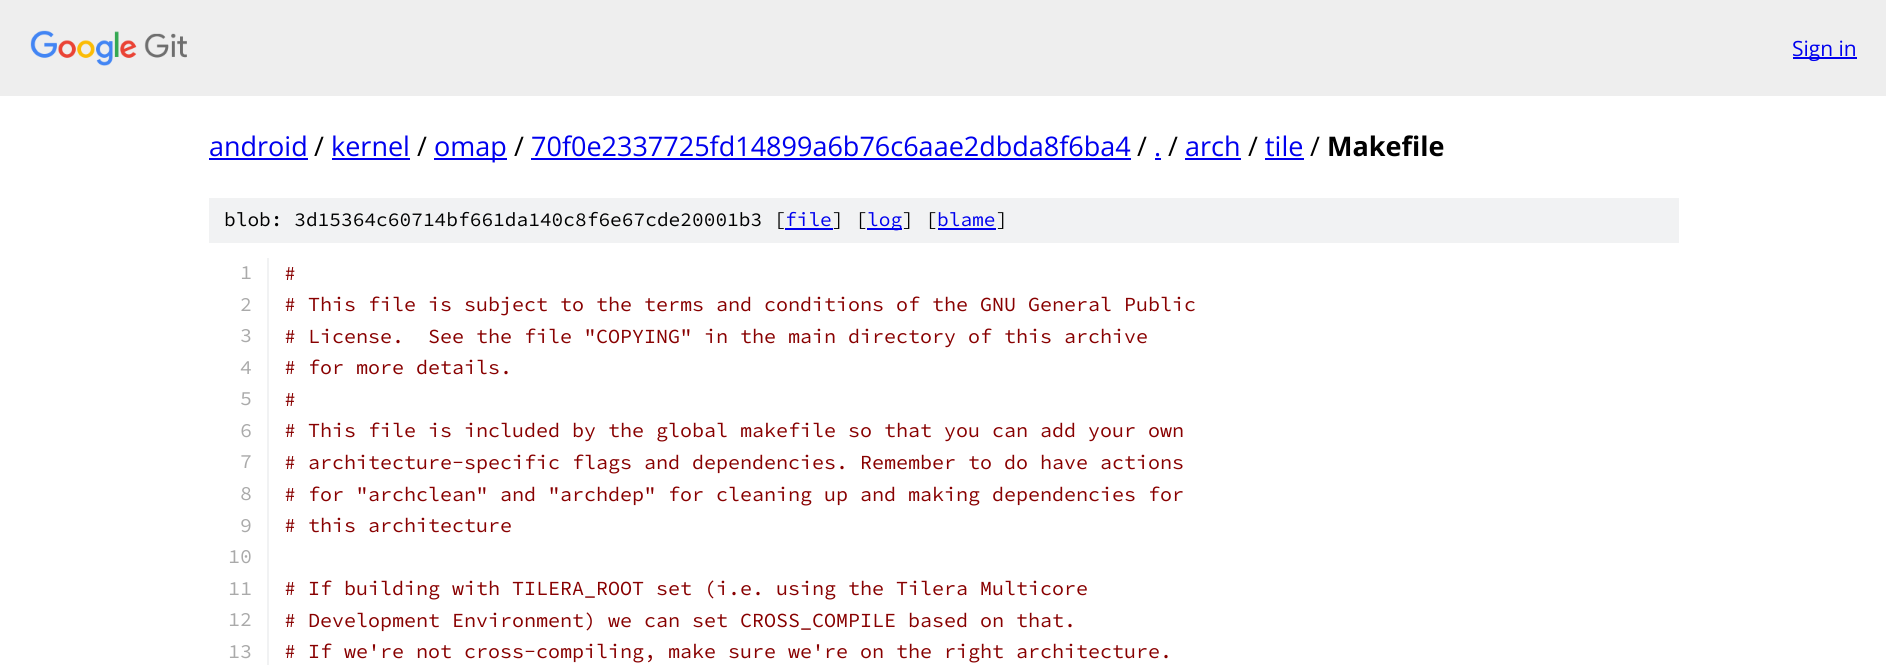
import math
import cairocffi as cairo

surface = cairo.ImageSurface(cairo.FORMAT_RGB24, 1886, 665)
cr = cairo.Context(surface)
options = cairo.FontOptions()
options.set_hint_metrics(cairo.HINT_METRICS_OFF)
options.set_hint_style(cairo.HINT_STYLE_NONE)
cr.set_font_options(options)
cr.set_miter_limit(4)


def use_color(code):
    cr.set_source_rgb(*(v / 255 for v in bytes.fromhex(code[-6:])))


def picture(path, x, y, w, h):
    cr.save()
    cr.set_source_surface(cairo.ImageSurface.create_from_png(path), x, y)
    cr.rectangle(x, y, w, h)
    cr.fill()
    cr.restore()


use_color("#ffffff")
cr.paint()
use_color("#eeeeee")
cr.rectangle(0, 0, 1886, 96)
cr.fill()
picture("img1.png", 30, 30, 157, 36)
use_color("#0000ee")
cr.rectangle(1793, 57, 64, 2)
cr.fill()
cr.select_font_face("Open Sans")
cr.set_font_size(21)
cr.move_to(1792, 56)
cr.show_text("Sign in")
cr.set_font_size(27)
cr.move_to(209, 156)
cr.show_text("android")
cr.rectangle(209, 158, 99, 2)
cr.fill()
use_color("#000000")
cr.move_to(314, 156)
cr.show_text("/")
use_color("#0000ee")
cr.move_to(331, 156)
cr.show_text("kernel")
cr.rectangle(332, 158, 78, 2)
cr.fill()
use_color("#000000")
cr.move_to(417, 156)
cr.show_text("/")
use_color("#0000ee")
cr.rectangle(434, 158, 73, 2)
cr.fill()
cr.move_to(434, 156)
cr.show_text("omap")
use_color("#000000")
cr.move_to(514, 156)
cr.show_text("/")
use_color("#0000ee")
cr.move_to(531, 156)
cr.show_text("70f0e2337725fd14899a6b76c6aae2dbda8f6ba4")
cr.rectangle(531, 158, 600, 2)
cr.fill()
use_color("#000000")
cr.move_to(1137, 156)
cr.show_text("/")
use_color("#0000ee")
cr.move_to(1154, 156)
cr.show_text(".")
cr.rectangle(1155, 158, 6, 2)
cr.fill()
use_color("#000000")
cr.move_to(1168, 156)
cr.show_text("/")
use_color("#0000ee")
cr.move_to(1185, 156)
cr.show_text("arch")
cr.rectangle(1185, 158, 56, 2)
cr.fill()
use_color("#000000")
cr.move_to(1248, 156)
cr.show_text("/")
use_color("#0000ee")
cr.move_to(1265, 156)
cr.show_text("tile")
cr.rectangle(1265, 158, 39, 2)
cr.fill()
use_color("#000000")
cr.move_to(1310, 156)
cr.show_text("/")
cr.select_font_face("Open Sans", cairo.FONT_SLANT_NORMAL, cairo.FONT_WEIGHT_BOLD)
cr.move_to(1327, 156)
cr.show_text("Makefile")
use_color("#f1f2f3")
cr.rectangle(209, 198, 1470, 45)
cr.fill()
cr.select_font_face("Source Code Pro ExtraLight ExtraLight")
cr.set_font_size(19.5)
use_color("#000000")
cr.move_to(224, 226)
cr.show_text("blob: 3d15364c60714bf661da140c8f6e67cde20001b3 [")
use_color("#0000ee")
cr.move_to(785, 226)
cr.show_text("file")
cr.rectangle(785, 228, 48, 2)
cr.fill()
use_color("#000000")
cr.move_to(832, 226)
cr.show_text("] [")
use_color("#0000ee")
cr.rectangle(867, 228, 35, 2)
cr.fill()
cr.move_to(867, 226)
cr.show_text("log")
use_color("#000000")
cr.move_to(902, 226)
cr.show_text("] [")
use_color("#0000ee")
cr.move_to(937, 226)
cr.show_text("blame")
cr.rectangle(938, 228, 58, 2)
cr.fill()
use_color("#000000")
cr.move_to(996, 226)
cr.show_text("]")
use_color("#f1f2f3")
cr.rectangle(267, 258, 2, 407)
cr.fill()
cr.set_font_size(20)
use_color("#aaaaaa")
cr.move_to(240, 279)
cr.show_text("1")
use_color("#880000")
cr.move_to(284, 280)
cr.show_text("#")
use_color("#aaaaaa")
cr.move_to(240, 311)
cr.show_text("2")
use_color("#880000")
cr.move_to(284, 311)
cr.show_text("# This file is subject to the terms and conditions of the GNU General Public")
use_color("#aaaaaa")
cr.move_to(240, 342)
cr.show_text("3")
use_color("#880000")
cr.move_to(284, 343)
cr.show_text("# License.  See the file \"COPYING\" in the main directory of this archive")
use_color("#aaaaaa")
cr.move_to(240, 374)
cr.show_text("4")
use_color("#880000")
cr.move_to(284, 374)
cr.show_text("# for more details.")
use_color("#aaaaaa")
cr.move_to(240, 405)
cr.show_text("5")
use_color("#880000")
cr.move_to(284, 406)
cr.show_text("#")
use_color("#aaaaaa")
cr.move_to(240, 437)
cr.show_text("6")
use_color("#880000")
cr.move_to(284, 437)
cr.show_text("# This file is included by the global makefile so that you can add your own")
use_color("#aaaaaa")
cr.move_to(240, 468)
cr.show_text("7")
use_color("#880000")
cr.move_to(284, 469)
cr.show_text("# architecture-specific flags and dependencies. Remember to do have actions")
use_color("#aaaaaa")
cr.move_to(240, 500)
cr.show_text("8")
use_color("#880000")
cr.move_to(284, 501)
cr.show_text("# for \"archclean\" and \"archdep\" for cleaning up and making dependencies for")
use_color("#aaaaaa")
cr.move_to(240, 532)
cr.show_text("9")
use_color("#880000")
cr.move_to(284, 532)
cr.show_text("# this architecture")
use_color("#aaaaaa")
cr.move_to(228, 563)
cr.show_text("10")
cr.move_to(228, 595)
cr.show_text("11")
use_color("#880000")
cr.move_to(284, 595)
cr.show_text("# If building with TILERA_ROOT set (i.e. using the Tilera Multicore")
use_color("#aaaaaa")
cr.move_to(228, 626)
cr.show_text("12")
use_color("#880000")
cr.move_to(284, 627)
cr.show_text("# Development Environment) we can set CROSS_COMPILE based on that.")
use_color("#aaaaaa")
cr.move_to(228, 658)
cr.show_text("13")
use_color("#880000")
cr.move_to(284, 658)
cr.show_text("# If we're not cross-compiling, make sure we're on the right architecture.")
surface.write_to_png("result.png")
